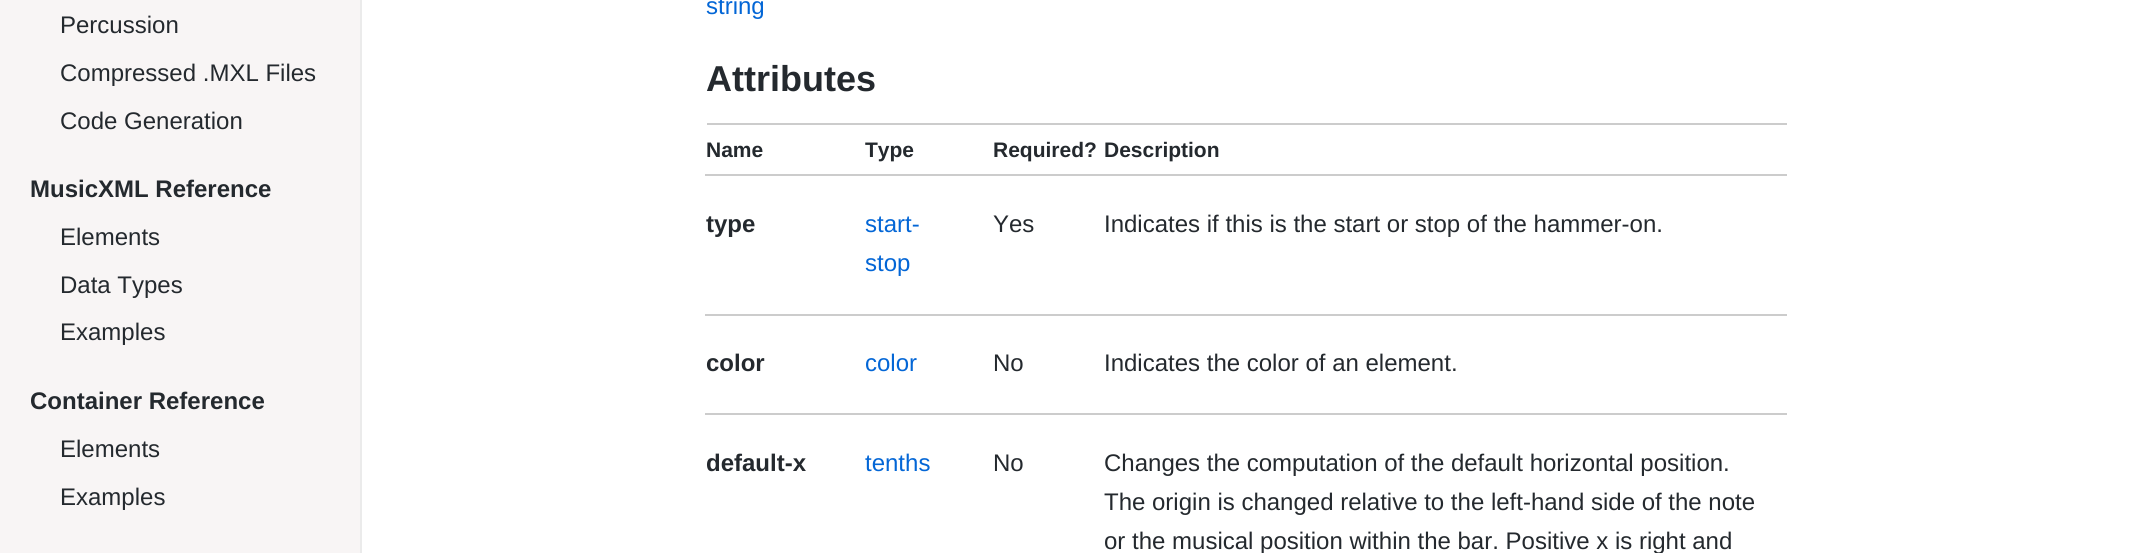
import math
import cairocffi as cairo

surface = cairo.ImageSurface(cairo.FORMAT_RGB24, 2129, 553)
cr = cairo.Context(surface)
options = cairo.FontOptions()
options.set_hint_metrics(cairo.HINT_METRICS_OFF)
options.set_hint_style(cairo.HINT_STYLE_NONE)
cr.set_font_options(options)
cr.set_miter_limit(4)


def use_color(code):
    cr.set_source_rgb(*(v / 255 for v in bytes.fromhex(code[-6:])))


use_color("#ffffff")
cr.paint()
use_color("#f8f5f5")
cr.rectangle(0, 0, 360, 553)
cr.fill()
use_color("#ebebeb")
cr.rectangle(360, 0, 2, 553)
cr.fill()
cr.select_font_face("Liberation Sans")
cr.set_font_size(24)
use_color("#24292e")
cr.move_to(60, 33)
cr.show_text("Percussion")
cr.move_to(60, 81)
cr.show_text("Compressed .MXL Files")
cr.move_to(60, 129)
cr.show_text("Code Generation")
cr.select_font_face("Liberation Sans", cairo.FONT_SLANT_NORMAL, cairo.FONT_WEIGHT_BOLD)
cr.move_to(30, 197)
cr.show_text("MusicXML Reference")
cr.select_font_face("Liberation Sans")
cr.move_to(60, 245)
cr.show_text("Elements")
cr.move_to(60, 293)
cr.show_text("Data Types")
cr.move_to(60, 340)
cr.show_text("Examples")
cr.select_font_face("Liberation Sans", cairo.FONT_SLANT_NORMAL, cairo.FONT_WEIGHT_BOLD)
cr.move_to(30, 409)
cr.show_text("Container Reference")
cr.select_font_face("Liberation Sans")
cr.move_to(60, 457)
cr.show_text("Elements")
cr.move_to(60, 505)
cr.show_text("Examples")
use_color("#0366d6")
cr.move_to(706, 14)
cr.show_text("string")
cr.select_font_face("Liberation Sans", cairo.FONT_SLANT_NORMAL, cairo.FONT_WEIGHT_BOLD)
cr.set_font_size(36)
use_color("#24292e")
cr.move_to(706, 91)
cr.show_text("Attributes")
use_color("#cccccc")
cr.rectangle(707, 123, 1080, 2)
cr.fill()
cr.set_font_size(21)
use_color("#24292e")
cr.move_to(706, 157)
cr.show_text("Name")
cr.move_to(865, 157)
cr.show_text("Type")
cr.move_to(993, 157)
cr.show_text("Required?")
use_color("#cccccc")
cr.rectangle(705, 174, 1082, 2)
cr.fill()
use_color("#24292e")
cr.move_to(1104, 157)
cr.show_text("Description")
cr.set_font_size(24)
cr.move_to(706, 232)
cr.show_text("type")
cr.select_font_face("Liberation Sans")
use_color("#0366d6")
cr.move_to(865, 232)
cr.show_text("start-")
cr.move_to(865, 271)
cr.show_text("stop")
use_color("#24292e")
cr.move_to(993, 232)
cr.show_text("Yes")
use_color("#cccccc")
cr.rectangle(705, 314, 1082, 2)
cr.fill()
use_color("#24292e")
cr.move_to(1104, 232)
cr.show_text("Indicates if this is the start or stop of the hammer-on.")
cr.select_font_face("Liberation Sans", cairo.FONT_SLANT_NORMAL, cairo.FONT_WEIGHT_BOLD)
cr.move_to(706, 371)
cr.show_text("color")
cr.select_font_face("Liberation Sans")
use_color("#0366d6")
cr.move_to(865, 371)
cr.show_text("color")
use_color("#24292e")
cr.move_to(993, 371)
cr.show_text("No")
use_color("#cccccc")
cr.rectangle(705, 413, 1082, 2)
cr.fill()
use_color("#24292e")
cr.move_to(1104, 371)
cr.show_text("Indicates the color of an element.")
cr.select_font_face("Liberation Sans", cairo.FONT_SLANT_NORMAL, cairo.FONT_WEIGHT_BOLD)
cr.move_to(706, 471)
cr.show_text("default-x")
cr.select_font_face("Liberation Sans")
use_color("#0366d6")
cr.move_to(865, 471)
cr.show_text("tenths")
use_color("#24292e")
cr.move_to(993, 471)
cr.show_text("No")
cr.move_to(1104, 471)
cr.show_text("Changes the computation of the default horizontal position.")
cr.move_to(1104, 510)
cr.show_text("The origin is changed relative to the left-hand side of the note")
cr.move_to(1104, 549)
cr.show_text("or the musical position within the bar. Positive x is right and")
surface.write_to_png("result.png")
